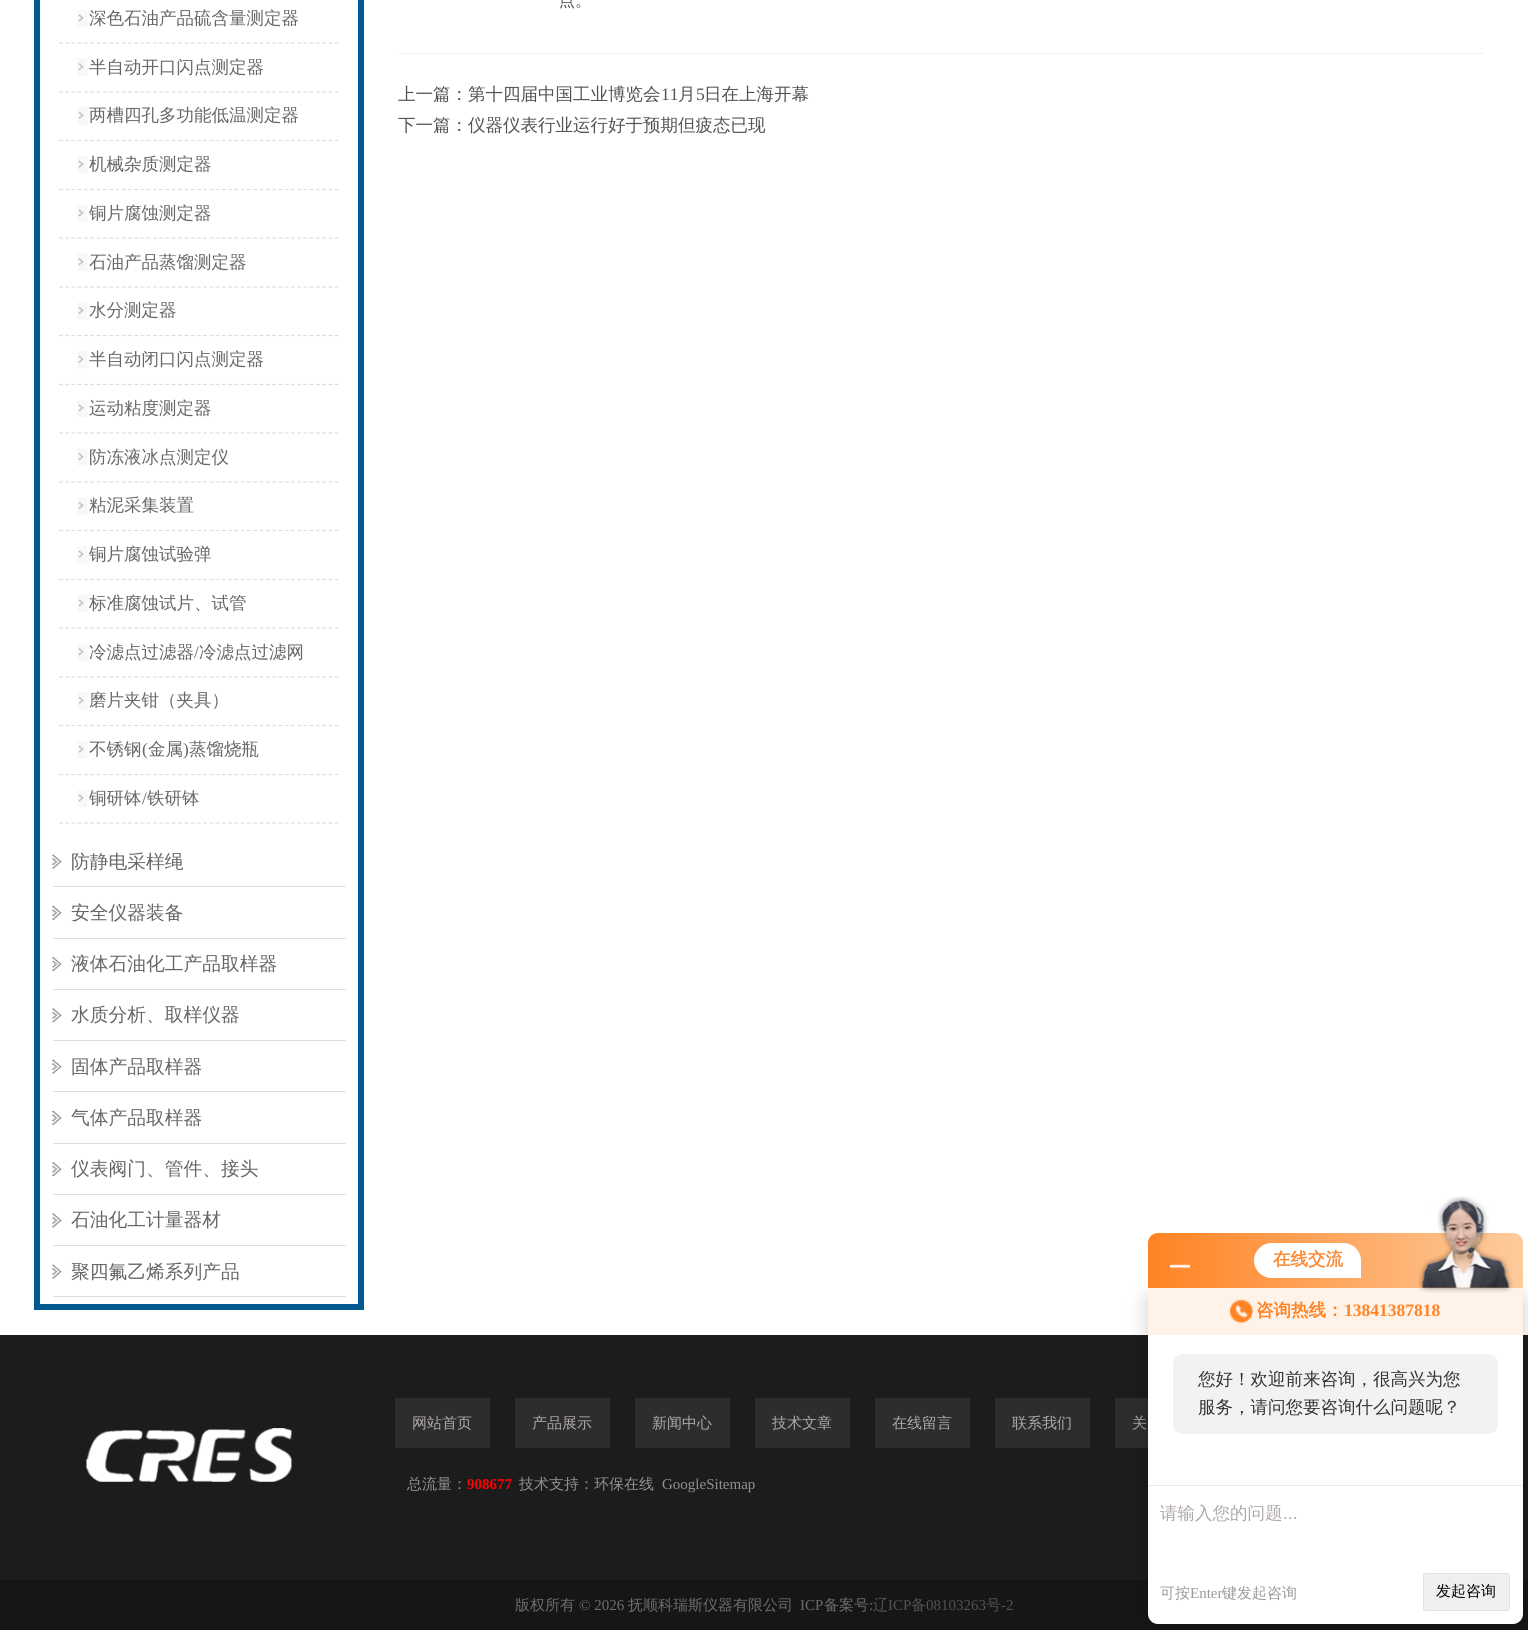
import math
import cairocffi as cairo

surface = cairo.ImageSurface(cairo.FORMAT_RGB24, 1528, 1630)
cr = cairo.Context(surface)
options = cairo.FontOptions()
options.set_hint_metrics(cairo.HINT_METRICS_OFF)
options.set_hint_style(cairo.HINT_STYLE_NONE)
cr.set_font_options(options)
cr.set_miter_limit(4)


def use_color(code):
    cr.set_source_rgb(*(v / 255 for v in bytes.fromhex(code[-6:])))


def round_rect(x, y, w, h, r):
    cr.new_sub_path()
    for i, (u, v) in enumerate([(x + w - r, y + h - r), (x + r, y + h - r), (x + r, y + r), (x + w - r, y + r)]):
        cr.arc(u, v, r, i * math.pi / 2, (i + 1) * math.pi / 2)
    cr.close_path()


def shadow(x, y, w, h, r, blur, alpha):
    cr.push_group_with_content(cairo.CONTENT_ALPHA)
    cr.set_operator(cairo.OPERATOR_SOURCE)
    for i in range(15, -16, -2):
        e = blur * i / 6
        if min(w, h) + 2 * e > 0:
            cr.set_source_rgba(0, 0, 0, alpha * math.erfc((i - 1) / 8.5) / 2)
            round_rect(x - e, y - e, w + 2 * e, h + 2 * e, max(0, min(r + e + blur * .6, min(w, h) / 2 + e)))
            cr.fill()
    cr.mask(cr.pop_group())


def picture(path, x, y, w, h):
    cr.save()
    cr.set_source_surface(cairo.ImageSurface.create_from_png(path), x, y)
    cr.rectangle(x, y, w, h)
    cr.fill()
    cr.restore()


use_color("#ffffff")
cr.paint()
use_color("#005991")
cr.rectangle(358, 0, 6, 1310)
cr.fill()
cr.rectangle(34, 1304, 330, 6)
cr.fill()
cr.rectangle(34, 0, 6, 1310)
cr.fill()
cr.new_path()
cr.move_to(59, 43)
cr.line_to(339, 43)
use_color("#dedede")
cr.set_line_width(1.2)
cr.set_dash([3.75, 2.52])
cr.stroke()
picture("img1.png", 77, 10, 11, 17)
cr.select_font_face("WenQuanYi Zen Hei Medium")
cr.set_font_size(17.5)
use_color("#666666")
cr.move_to(89, 24)
cr.show_text("深色石油产品硫含量测定器")
cr.new_path()
cr.move_to(59, 92)
cr.line_to(339, 92)
use_color("#dedede")
cr.stroke()
picture("img2.png", 77, 58, 11, 18)
use_color("#666666")
cr.move_to(89, 73)
cr.show_text("半自动开口闪点测定器")
cr.new_path()
cr.move_to(59, 140.5)
cr.line_to(339, 140.5)
use_color("#dedede")
cr.stroke()
picture("img3.png", 77, 107, 11, 18)
use_color("#666666")
cr.move_to(89, 121)
cr.show_text("两槽四孔多功能低温测定器")
cr.new_path()
cr.move_to(59, 189.5)
cr.line_to(339, 189.5)
use_color("#dedede")
cr.stroke()
picture("img4.png", 77, 156, 11, 18)
use_color("#666666")
cr.move_to(89, 170)
cr.show_text("机械杂质测定器")
cr.new_path()
cr.move_to(59, 238)
cr.line_to(339, 238)
use_color("#dedede")
cr.stroke()
picture("img1.png", 77, 205, 11, 17)
use_color("#666666")
cr.move_to(89, 219)
cr.show_text("铜片腐蚀测定器")
cr.new_path()
cr.move_to(59, 287)
cr.line_to(339, 287)
use_color("#dedede")
cr.stroke()
picture("img2.png", 77, 253, 11, 18)
use_color("#666666")
cr.move_to(89, 268)
cr.show_text("石油产品蒸馏测定器")
cr.new_path()
cr.move_to(59, 335.5)
cr.line_to(339, 335.5)
use_color("#dedede")
cr.stroke()
picture("img3.png", 77, 302, 11, 18)
use_color("#666666")
cr.move_to(89, 316)
cr.show_text("水分测定器")
cr.new_path()
cr.move_to(59, 384.5)
cr.line_to(339, 384.5)
use_color("#dedede")
cr.stroke()
picture("img4.png", 77, 351, 11, 18)
use_color("#666666")
cr.move_to(89, 365)
cr.show_text("半自动闭口闪点测定器")
cr.new_path()
cr.move_to(59, 433)
cr.line_to(339, 433)
use_color("#dedede")
cr.stroke()
picture("img1.png", 77, 400, 11, 17)
use_color("#666666")
cr.move_to(89, 414)
cr.show_text("运动粘度测定器")
cr.new_path()
cr.move_to(59, 482)
cr.line_to(339, 482)
use_color("#dedede")
cr.stroke()
picture("img2.png", 77, 448, 11, 18)
use_color("#666666")
cr.move_to(89, 463)
cr.show_text("防冻液冰点测定仪")
cr.new_path()
cr.move_to(59, 530.5)
cr.line_to(339, 530.5)
use_color("#dedede")
cr.stroke()
picture("img3.png", 77, 497, 11, 18)
use_color("#666666")
cr.move_to(89, 511)
cr.show_text("粘泥采集装置")
cr.new_path()
cr.move_to(59, 579.5)
cr.line_to(339, 579.5)
use_color("#dedede")
cr.stroke()
picture("img4.png", 77, 546, 11, 18)
use_color("#666666")
cr.move_to(89, 560)
cr.show_text("铜片腐蚀试验弹")
cr.new_path()
cr.move_to(59, 628)
cr.line_to(339, 628)
use_color("#dedede")
cr.stroke()
picture("img1.png", 77, 595, 11, 17)
use_color("#666666")
cr.move_to(89, 609)
cr.show_text("标准腐蚀试片、试管")
cr.new_path()
cr.move_to(59, 677)
cr.line_to(339, 677)
use_color("#dedede")
cr.stroke()
picture("img2.png", 77, 643, 11, 18)
use_color("#666666")
cr.move_to(89, 658)
cr.show_text("冷滤点过滤器")
cr.select_font_face("Liberation Serif")
cr.move_to(194, 658)
cr.show_text("/")
cr.select_font_face("WenQuanYi Zen Hei Medium")
cr.move_to(199, 658)
cr.show_text("冷滤点过滤网")
cr.new_path()
cr.move_to(59, 725.5)
cr.line_to(339, 725.5)
use_color("#dedede")
cr.stroke()
picture("img3.png", 77, 692, 11, 18)
use_color("#666666")
cr.move_to(89, 706)
cr.show_text("磨片夹钳（夹具）")
cr.new_path()
cr.move_to(59, 774.5)
cr.line_to(339, 774.5)
use_color("#dedede")
cr.stroke()
picture("img4.png", 77, 741, 11, 18)
use_color("#666666")
cr.move_to(89, 755)
cr.show_text("不锈钢")
cr.select_font_face("Liberation Serif")
cr.move_to(142, 755)
cr.show_text("(")
cr.select_font_face("WenQuanYi Zen Hei Medium")
cr.move_to(148, 755)
cr.show_text("金属")
cr.select_font_face("Liberation Serif")
cr.move_to(183, 755)
cr.show_text(")")
cr.select_font_face("WenQuanYi Zen Hei Medium")
cr.move_to(189, 755)
cr.show_text("蒸馏烧瓶")
cr.new_path()
cr.move_to(59, 823)
cr.line_to(339, 823)
use_color("#dedede")
cr.stroke()
picture("img1.png", 77, 790, 11, 17)
use_color("#666666")
cr.move_to(89, 804)
cr.show_text("铜研钵")
cr.select_font_face("Liberation Serif")
cr.move_to(142, 804)
cr.show_text("/")
cr.select_font_face("WenQuanYi Zen Hei Medium")
cr.move_to(147, 804)
cr.show_text("铁研钵")
picture("img5.png", 52, 854, 10, 15)
use_color("#dedede")
cr.rectangle(53, 886, 293, 1)
cr.fill()
cr.set_font_size(18.75)
use_color("#666666")
cr.move_to(71, 868)
cr.show_text("防静电采样绳")
picture("img6.png", 52, 906, 10, 14)
use_color("#dedede")
cr.rectangle(53, 938, 293, 1)
cr.fill()
use_color("#666666")
cr.move_to(71, 919)
cr.show_text("安全仪器装备")
picture("img7.png", 52, 957, 10, 14)
use_color("#dedede")
cr.rectangle(53, 989, 293, 1)
cr.fill()
use_color("#666666")
cr.move_to(71, 970)
cr.show_text("液体石油化工产品取样器")
picture("img8.png", 52, 1008, 10, 15)
use_color("#dedede")
cr.rectangle(53, 1040, 293, 1)
cr.fill()
use_color("#666666")
cr.move_to(71, 1021)
cr.show_text("水质分析、取样仪器")
picture("img5.png", 52, 1059, 10, 15)
use_color("#dedede")
cr.rectangle(53, 1091, 293, 1)
cr.fill()
use_color("#666666")
cr.move_to(71, 1073)
cr.show_text("固体产品取样器")
picture("img6.png", 52, 1111, 10, 14)
use_color("#dedede")
cr.rectangle(53, 1143, 293, 1)
cr.fill()
use_color("#666666")
cr.move_to(71, 1124)
cr.show_text("气体产品取样器")
picture("img7.png", 52, 1162, 10, 14)
use_color("#dedede")
cr.rectangle(53, 1194, 293, 1)
cr.fill()
use_color("#666666")
cr.move_to(71, 1175)
cr.show_text("仪表阀门、管件、接头")
picture("img8.png", 52, 1213, 10, 15)
use_color("#dedede")
cr.rectangle(53, 1245, 293, 1)
cr.fill()
use_color("#666666")
cr.move_to(71, 1226)
cr.show_text("石油化工计量器材")
picture("img5.png", 52, 1264, 10, 15)
use_color("#dedede")
cr.rectangle(53, 1296, 293, 1)
cr.fill()
use_color("#666666")
cr.move_to(71, 1278)
cr.show_text("聚四氟乙烯系列产品")
cr.set_font_size(16)
use_color("#535152")
cr.move_to(559, 6)
cr.show_text("点。")
use_color("#f1f1f1")
cr.rectangle(399, 53, 1085, 1)
cr.fill()
cr.set_font_size(17.5)
use_color("#535152")
cr.move_to(398, 100)
cr.show_text("上一篇：第十四届中国工业博览会")
cr.select_font_face("Liberation Serif")
cr.move_to(661, 100)
cr.show_text("11")
cr.select_font_face("WenQuanYi Zen Hei Medium")
cr.move_to(678, 100)
cr.show_text("月")
cr.select_font_face("Liberation Serif")
cr.move_to(696, 100)
cr.show_text("5")
cr.select_font_face("WenQuanYi Zen Hei Medium")
cr.move_to(704, 100)
cr.show_text("日在上海开幕")
cr.move_to(398, 131)
cr.show_text("下一篇：仪器仪表行业运行好于预期但疲态已现")
use_color("#1c1c1d")
cr.rectangle(0, 1335, 1528, 245)
cr.fill()
picture("img9.png", 86, 1428, 206, 54)
use_color("#2d2d2f")
cr.rectangle(395, 1398, 95, 50)
cr.fill()
cr.set_font_size(15)
use_color("#afa8a8")
cr.move_to(412, 1428)
cr.show_text("网站首页")
use_color("#2d2d2f")
cr.rectangle(515, 1398, 95, 50)
cr.fill()
use_color("#afa8a8")
cr.move_to(532, 1428)
cr.show_text("产品展示")
use_color("#2d2d2f")
cr.rectangle(635, 1398, 95, 50)
cr.fill()
use_color("#afa8a8")
cr.move_to(652, 1428)
cr.show_text("新闻中心")
use_color("#2d2d2f")
cr.rectangle(755, 1398, 95, 50)
cr.fill()
use_color("#afa8a8")
cr.move_to(772, 1428)
cr.show_text("技术文章")
use_color("#2d2d2f")
cr.rectangle(875, 1398, 95, 50)
cr.fill()
use_color("#afa8a8")
cr.move_to(892, 1428)
cr.show_text("在线留言")
use_color("#2d2d2f")
cr.rectangle(995, 1398, 95, 50)
cr.fill()
use_color("#afa8a8")
cr.move_to(1012, 1428)
cr.show_text("联系我们")
use_color("#2d2d2f")
cr.rectangle(1115, 1398, 33, 50)
cr.fill()
use_color("#afa8a8")
cr.move_to(1132, 1428)
cr.show_text("关")
use_color("#968f8f")
cr.move_to(407, 1489)
cr.show_text("总流量：")
cr.select_font_face("Liberation Serif", cairo.FONT_SLANT_NORMAL, cairo.FONT_WEIGHT_BOLD)
use_color("#ff0000")
cr.move_to(467, 1489)
cr.show_text("908677")
cr.select_font_face("WenQuanYi Zen Hei Medium")
use_color("#968f8f")
cr.move_to(519, 1489)
cr.show_text("技术支持：环保在线")
cr.select_font_face("Liberation Serif")
cr.move_to(662, 1489)
cr.show_text("GoogleSitemap")
use_color("#161617")
cr.rectangle(0, 1580, 1528, 50)
cr.fill()
cr.select_font_face("WenQuanYi Zen Hei Medium")
use_color("#6d6c6c")
cr.move_to(515, 1610)
cr.show_text("版权所有")
cr.select_font_face("Liberation Serif")
cr.move_to(579, 1610)
cr.show_text("© 2026")
cr.select_font_face("WenQuanYi Zen Hei Medium")
cr.move_to(628, 1610)
cr.show_text("抚顺科瑞斯仪器有限公司")
cr.select_font_face("Liberation Serif")
cr.move_to(800, 1610)
cr.show_text("ICP")
cr.select_font_face("WenQuanYi Zen Hei Medium")
cr.move_to(824, 1610)
cr.show_text("备案号")
cr.select_font_face("Liberation Serif")
cr.move_to(869, 1610)
cr.show_text(":")
cr.select_font_face("WenQuanYi Zen Hei Medium")
use_color("#535152")
cr.move_to(873, 1610)
cr.show_text("辽")
cr.select_font_face("Liberation Serif")
cr.move_to(888, 1610)
cr.show_text("ICP")
cr.select_font_face("WenQuanYi Zen Hei Medium")
cr.move_to(911, 1610)
cr.show_text("备")
cr.select_font_face("Liberation Serif")
cr.move_to(926, 1610)
cr.show_text("08103263")
cr.select_font_face("WenQuanYi Zen Hei Medium")
cr.move_to(986, 1610)
cr.show_text("号")
cr.select_font_face("Liberation Serif")
cr.move_to(1001, 1610)
cr.show_text("-2")
use_color("#000000")
shadow(1148, 1293, 375, 336, 10, 10, 0.2)
gradient = cairo.LinearGradient(1148, 1260, 1523, 1260)
gradient.add_color_stop_rgba(0, 1, 0.514, 0.141, 1)
gradient.add_color_stop_rgba(1, 0.996, 0.796, 0.612, 1)
cr.set_source(gradient)
cr.new_path()
cr.move_to(1158, 1233)
cr.line_to(1513, 1233)
cr.curve_to(1518.5, 1233, 1523, 1237.5, 1523, 1243)
cr.line_to(1523, 1288)
cr.line_to(1148, 1288)
cr.line_to(1148, 1243)
cr.curve_to(1148, 1237.5, 1152.5, 1233, 1158, 1233)
cr.close_path()
cr.fill()
picture("img10.png", 1170, 1264, 20, 5)
use_color("#ffffff")
cr.new_path()
cr.move_to(1271.5, 1243)
cr.line_to(1343.5, 1243)
cr.curve_to(1353, 1243, 1361, 1251, 1361, 1260.5)
cr.line_to(1361, 1278)
cr.line_to(1271.5, 1278)
cr.curve_to(1262, 1278, 1254, 1270, 1254, 1260.5)
cr.curve_to(1254, 1251, 1262, 1243, 1271.5, 1243)
cr.close_path()
cr.fill()
cr.select_font_face("WenQuanYi Zen Hei", cairo.FONT_SLANT_NORMAL, cairo.FONT_WEIGHT_BOLD)
cr.set_font_size(17.5)
use_color("#fb8b36")
cr.move_to(1273, 1265)
cr.show_text("在线交流")
use_color("#ffffff")
cr.new_path()
cr.move_to(1148, 1288)
cr.line_to(1523, 1288)
cr.line_to(1523, 1614)
cr.curve_to(1523, 1619.5, 1518.5, 1624, 1513, 1624)
cr.line_to(1158, 1624)
cr.curve_to(1152.5, 1624, 1148, 1619.5, 1148, 1614)
cr.close_path()
cr.fill()
use_color("#fff3e9")
cr.rectangle(1148, 1288, 375, 47)
cr.fill()
picture("img11.png", 1418, 1196, 95, 97)
picture("img12.png", 1230, 1299, 23, 25)
use_color("#ff8426")
cr.move_to(1256, 1316)
cr.show_text("咨询热线：")
cr.select_font_face("Liberation Serif", cairo.FONT_SLANT_NORMAL, cairo.FONT_WEIGHT_BOLD)
cr.move_to(1344, 1316)
cr.show_text("13841387818")
use_color("#f2f2f2")
round_rect(1173, 1354, 325, 80, 10)
cr.fill()
cr.select_font_face("WenQuanYi Zen Hei Medium")
use_color("#333333")
cr.move_to(1198, 1385)
cr.show_text("您好！欢迎前来咨询，很高兴为您")
cr.move_to(1198, 1413)
cr.show_text("服务，请问您要咨询什么问题呢？")
use_color("#eaeaea")
cr.rectangle(1148, 1485, 375, 1)
cr.fill()
use_color("#afa8a8")
cr.move_to(1160, 1519)
cr.show_text("请输入您的问题")
cr.select_font_face("Liberation Sans")
cr.move_to(1283, 1519)
cr.show_text("...")
cr.select_font_face("WenQuanYi Zen Hei Medium")
cr.set_font_size(15)
use_color("#999999")
cr.move_to(1160, 1598)
cr.show_text("可按")
cr.select_font_face("Liberation Serif")
cr.move_to(1190, 1598)
cr.show_text("Enter")
cr.select_font_face("WenQuanYi Zen Hei Medium")
cr.move_to(1222, 1598)
cr.show_text("键发起咨询")
use_color("#f0efed")
round_rect(1423.5, 1573.5, 86, 37, 2)
cr.fill_preserve()
use_color("#e2e2e2")
cr.set_line_width(1)
cr.set_dash([])
cr.stroke()
use_color("#000000")
cr.move_to(1436, 1596)
cr.show_text("发起咨询")
surface.write_to_png("result.png")
